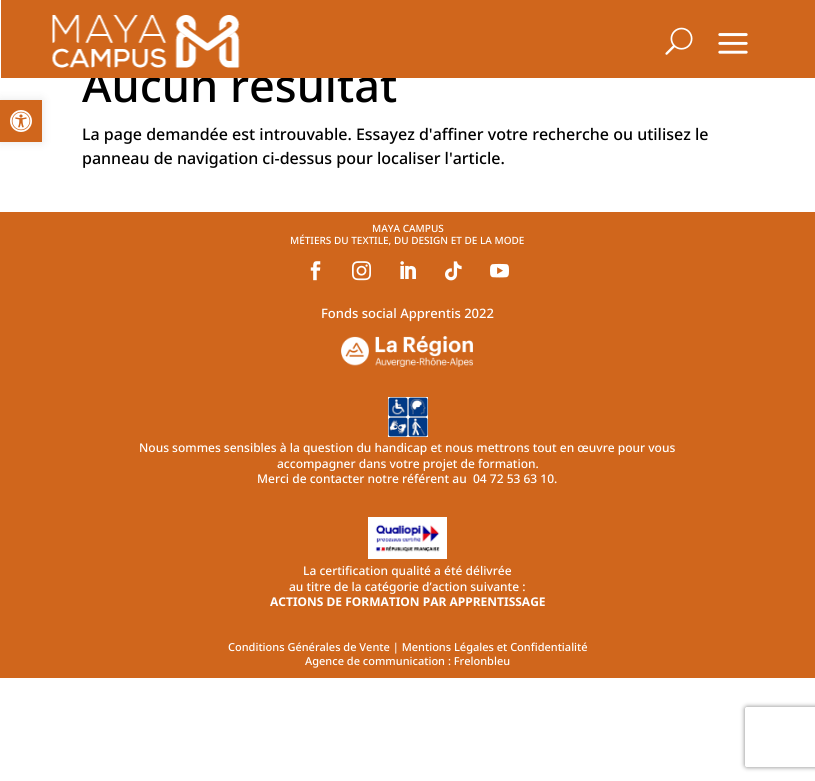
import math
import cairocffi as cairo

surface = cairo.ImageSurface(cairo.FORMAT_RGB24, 815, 781)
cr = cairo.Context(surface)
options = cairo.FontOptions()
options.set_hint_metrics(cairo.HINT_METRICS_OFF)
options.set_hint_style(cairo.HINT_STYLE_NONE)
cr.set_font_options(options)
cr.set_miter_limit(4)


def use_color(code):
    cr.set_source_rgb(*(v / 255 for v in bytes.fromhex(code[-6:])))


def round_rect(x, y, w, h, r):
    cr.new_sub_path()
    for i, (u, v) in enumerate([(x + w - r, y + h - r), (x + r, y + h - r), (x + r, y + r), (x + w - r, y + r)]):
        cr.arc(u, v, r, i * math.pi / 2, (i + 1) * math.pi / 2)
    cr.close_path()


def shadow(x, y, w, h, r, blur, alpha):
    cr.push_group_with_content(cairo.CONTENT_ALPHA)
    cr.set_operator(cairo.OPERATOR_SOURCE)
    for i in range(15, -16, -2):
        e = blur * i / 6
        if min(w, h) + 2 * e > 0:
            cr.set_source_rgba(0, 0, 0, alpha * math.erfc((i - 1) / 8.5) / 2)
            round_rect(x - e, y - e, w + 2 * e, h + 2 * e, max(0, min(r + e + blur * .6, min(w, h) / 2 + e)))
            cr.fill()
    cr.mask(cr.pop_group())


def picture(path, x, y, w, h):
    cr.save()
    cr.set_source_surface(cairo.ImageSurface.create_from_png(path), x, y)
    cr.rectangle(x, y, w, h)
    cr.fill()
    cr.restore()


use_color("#ffffff")
cr.paint()
use_color("#000000")
shadow(0, 100, 42, 42, 0, 5, 0.1)
use_color("#d0661c")
cr.rectangle(0, 100, 42, 42)
cr.fill()
picture("img1.png", 10, 110, 22, 22)
cr.select_font_face("Noto Sans Medium")
cr.set_font_size(45)
use_color("#000000")
cr.move_to(82, 102)
cr.show_text("Aucun résultat")
use_color("#d0661c")
cr.rectangle(1, 0, 814, 78)
cr.fill()
picture("img2.png", 52, 15, 188, 53)
picture("img3.png", 665, 27, 28, 28)
picture("img4.png", 718, 33, 30, 21)
cr.set_font_size(16)
use_color("#000000")
cr.move_to(82, 140)
cr.show_text("La page demandée est introuvable. Essayez d'affiner votre recherche ou utilisez le")
cr.move_to(82, 164)
cr.show_text("panneau de navigation ci-dessus pour localiser l'article.")
use_color("#d0661c")
cr.rectangle(0, 212, 815, 466)
cr.fill()
cr.set_font_size(10)
use_color("#ffffff")
cr.move_to(372, 232)
cr.show_text("MAYA CAMPUS")
cr.move_to(290, 244)
cr.show_text("MÉTIERS DU TEXTILE, DU DESIGN ET DE LA MODE")
picture("img5.png", 310, 261, 11, 20)
picture("img6.png", 352, 261, 19, 20)
picture("img7.png", 400, 261, 16, 18)
picture("img8.png", 445, 261, 17, 20)
picture("img9.png", 490, 263, 19, 15)
cr.set_font_size(13)
cr.move_to(321, 318)
cr.show_text("Fonds social Apprentis 2022")
picture("img10.png", 341, 336, 132, 31)
picture("img11.png", 388, 397, 40, 40)
cr.set_font_size(12)
cr.move_to(139, 452)
cr.show_text("Nous sommes sensibles à la question du handicap et nous mettrons tout en œuvre pour vous")
cr.move_to(277, 468)
cr.show_text("accompagner dans votre projet de formation.")
cr.move_to(257, 483)
cr.show_text("Merci de contacter notre référent au  04 72 53 63 10.")
picture("img12.png", 368, 517, 79, 42)
cr.move_to(303, 575)
cr.show_text("La certification qualité a été délivrée")
cr.move_to(289, 591)
cr.show_text("au titre de la catégorie d’action suivante :")
cr.select_font_face("Noto Sans", cairo.FONT_SLANT_NORMAL, cairo.FONT_WEIGHT_BOLD)
cr.move_to(270, 606)
cr.show_text("ACTIONS DE FORMATION PAR APPRENTISSAGE")
cr.select_font_face("Noto Sans Medium")
cr.set_font_size(11)
cr.move_to(228, 651)
cr.show_text("Conditions Générales de Vente | Mentions Légales et Confidentialité")
cr.move_to(305, 665)
cr.show_text("Agence de communication : Frelonbleu")
cr.save()
cr.set_fill_rule(cairo.FILL_RULE_EVEN_ODD)
cr.new_path()
cr.move_to(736, 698)
cr.line_to(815, 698)
cr.line_to(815, 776)
cr.line_to(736, 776)
cr.close_path()
cr.move_to(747, 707)
cr.line_to(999, 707)
cr.curve_to(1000, 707, 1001, 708, 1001, 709)
cr.line_to(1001, 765)
cr.curve_to(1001, 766, 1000, 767, 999, 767)
cr.line_to(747, 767)
cr.curve_to(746, 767, 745, 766, 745, 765)
cr.line_to(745, 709)
cr.curve_to(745, 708, 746, 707, 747, 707)
cr.close_path()
cr.clip()
use_color("#808080")
shadow(745, 707, 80, 60, 2, 2.5, 1)
cr.restore()
surface.write_to_png("result.png")
